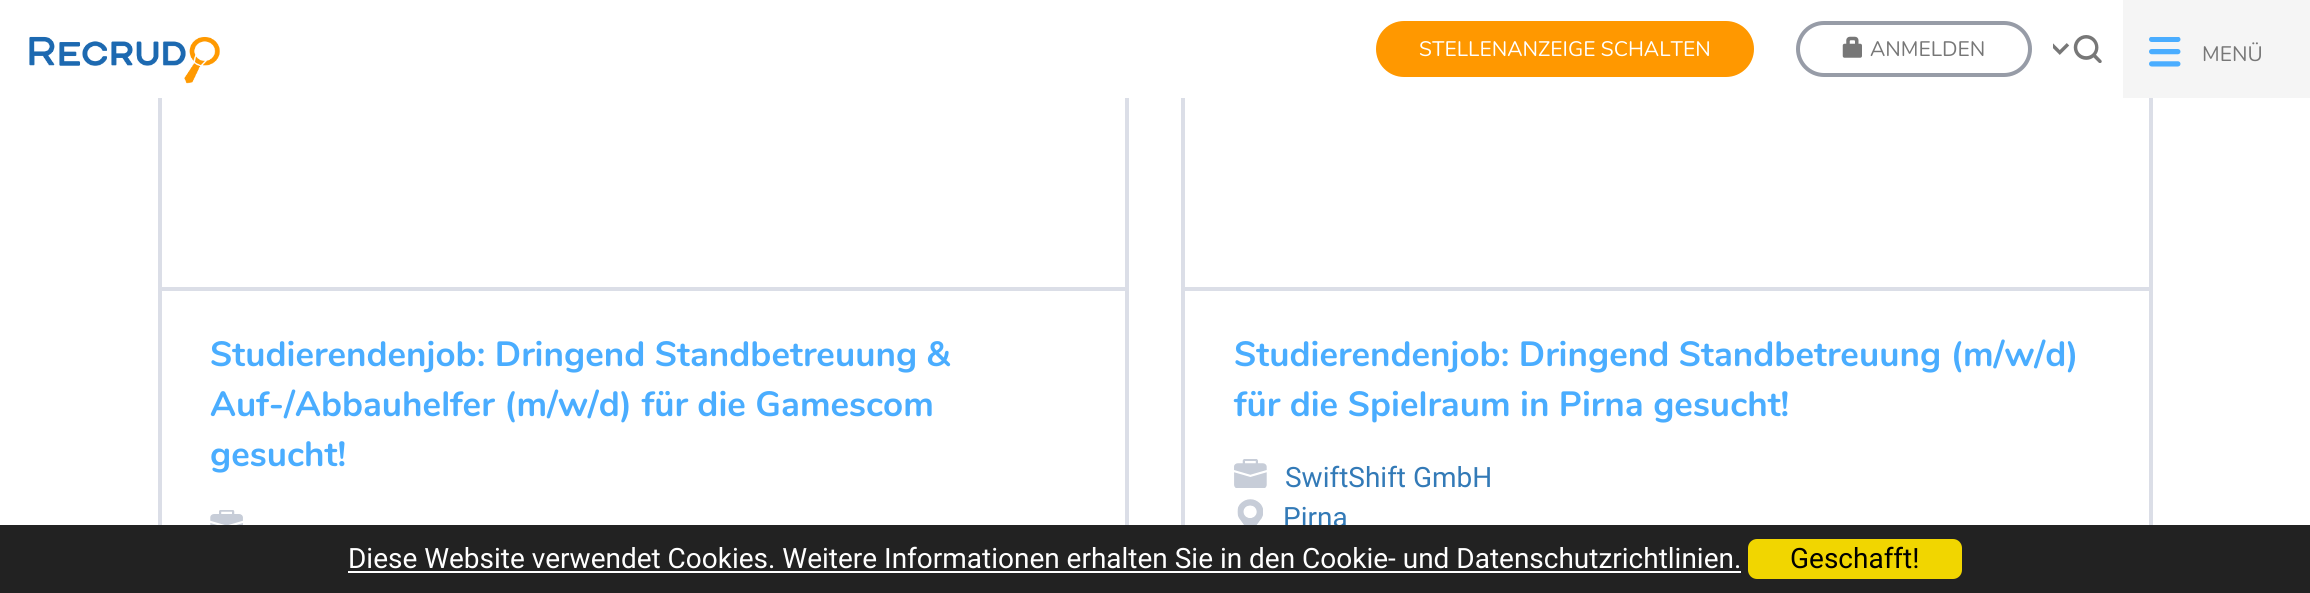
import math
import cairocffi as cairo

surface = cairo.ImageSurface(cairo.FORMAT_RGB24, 2310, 593)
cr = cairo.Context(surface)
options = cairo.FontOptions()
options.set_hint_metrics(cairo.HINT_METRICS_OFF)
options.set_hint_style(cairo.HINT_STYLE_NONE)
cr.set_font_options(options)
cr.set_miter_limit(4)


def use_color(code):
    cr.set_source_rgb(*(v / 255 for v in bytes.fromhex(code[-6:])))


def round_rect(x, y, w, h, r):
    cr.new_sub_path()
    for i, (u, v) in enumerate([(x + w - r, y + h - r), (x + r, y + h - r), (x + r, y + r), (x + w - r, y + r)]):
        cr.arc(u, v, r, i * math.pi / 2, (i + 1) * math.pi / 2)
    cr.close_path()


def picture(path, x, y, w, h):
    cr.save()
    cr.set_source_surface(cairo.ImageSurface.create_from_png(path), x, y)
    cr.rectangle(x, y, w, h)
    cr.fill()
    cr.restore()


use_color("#ffffff")
cr.paint()
cr.rectangle(160, 23, 967, 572)
use_color("#dbdee7")
cr.set_line_width(4)
cr.stroke()
cr.rectangle(1183, 23, 968, 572)
cr.stroke()
use_color("#ffffff")
cr.rectangle(158, 21, 1965, 77)
cr.fill()
picture("img1.png", 29, 36, 191, 48)
use_color("#ff9800")
round_rect(1376, 21, 378, 56, 28)
cr.fill()
cr.select_font_face("Nunito")
cr.set_font_size(21)
use_color("#ffffff")
cr.move_to(1419, 56)
cr.show_text("STELLENANZEIGE SCHALTEN")
round_rect(1798, 23, 232, 52, 26)
use_color("#979ca7")
cr.stroke()
picture("img2.png", 1842, 36, 20, 22)
use_color("#777777")
cr.move_to(1870, 56)
cr.show_text("ANMELDEN")
picture("img3.png", 2053, 35, 49, 28)
use_color("#f5f5f5")
cr.rectangle(2123, 0, 187, 98)
cr.fill()
picture("img4.png", 2149, 37, 32, 30)
use_color("#777777")
cr.move_to(2202, 61)
cr.show_text("MENÜ")
use_color("#dbdee7")
cr.rectangle(161, 287, 964, 4)
cr.fill()
cr.select_font_face("Nunito", cairo.FONT_SLANT_NORMAL, cairo.FONT_WEIGHT_BOLD)
cr.set_font_size(35)
use_color("#4aadff")
cr.move_to(210, 366)
cr.show_text("Studierendenjob: Dringend Standbetreuung &")
cr.move_to(210, 416)
cr.show_text("Auf-/Abbauhelfer (m/w/d) für die Gamescom")
cr.move_to(210, 466)
cr.show_text("gesucht!")
picture("img5.png", 210, 510, 33, 15)
use_color("#dbdee7")
cr.rectangle(1185, 287, 964, 4)
cr.fill()
use_color("#4aadff")
cr.move_to(1234, 366)
cr.show_text("Studierendenjob: Dringend Standbetreuung (m/w/d)")
cr.move_to(1234, 416)
cr.show_text("für die Spielraum in Pirna gesucht!")
picture("img6.png", 1234, 459, 33, 29)
cr.select_font_face("Roboto")
cr.set_font_size(28)
use_color("#337ab7")
cr.move_to(1285, 487)
cr.show_text("SwiftShift GmbH")
picture("img7.png", 1237, 499, 26, 26)
cr.move_to(1283, 527)
cr.show_text("Pirna")
use_color("#222222")
cr.rectangle(0, 525, 2310, 68)
cr.fill()
use_color("#ffffff")
cr.move_to(348, 568)
cr.show_text("Diese Website verwendet Cookies. Weitere Informationen erhalten Sie in den Cookie- und Datenschutzrichtlinien.")
cr.rectangle(348, 571, 1393, 2)
cr.fill()
use_color("#f1d600")
round_rect(1748, 539, 214, 40, 9)
cr.fill()
use_color("#000000")
cr.move_to(1790, 568)
cr.show_text("Geschafft!")
surface.write_to_png("result.png")
